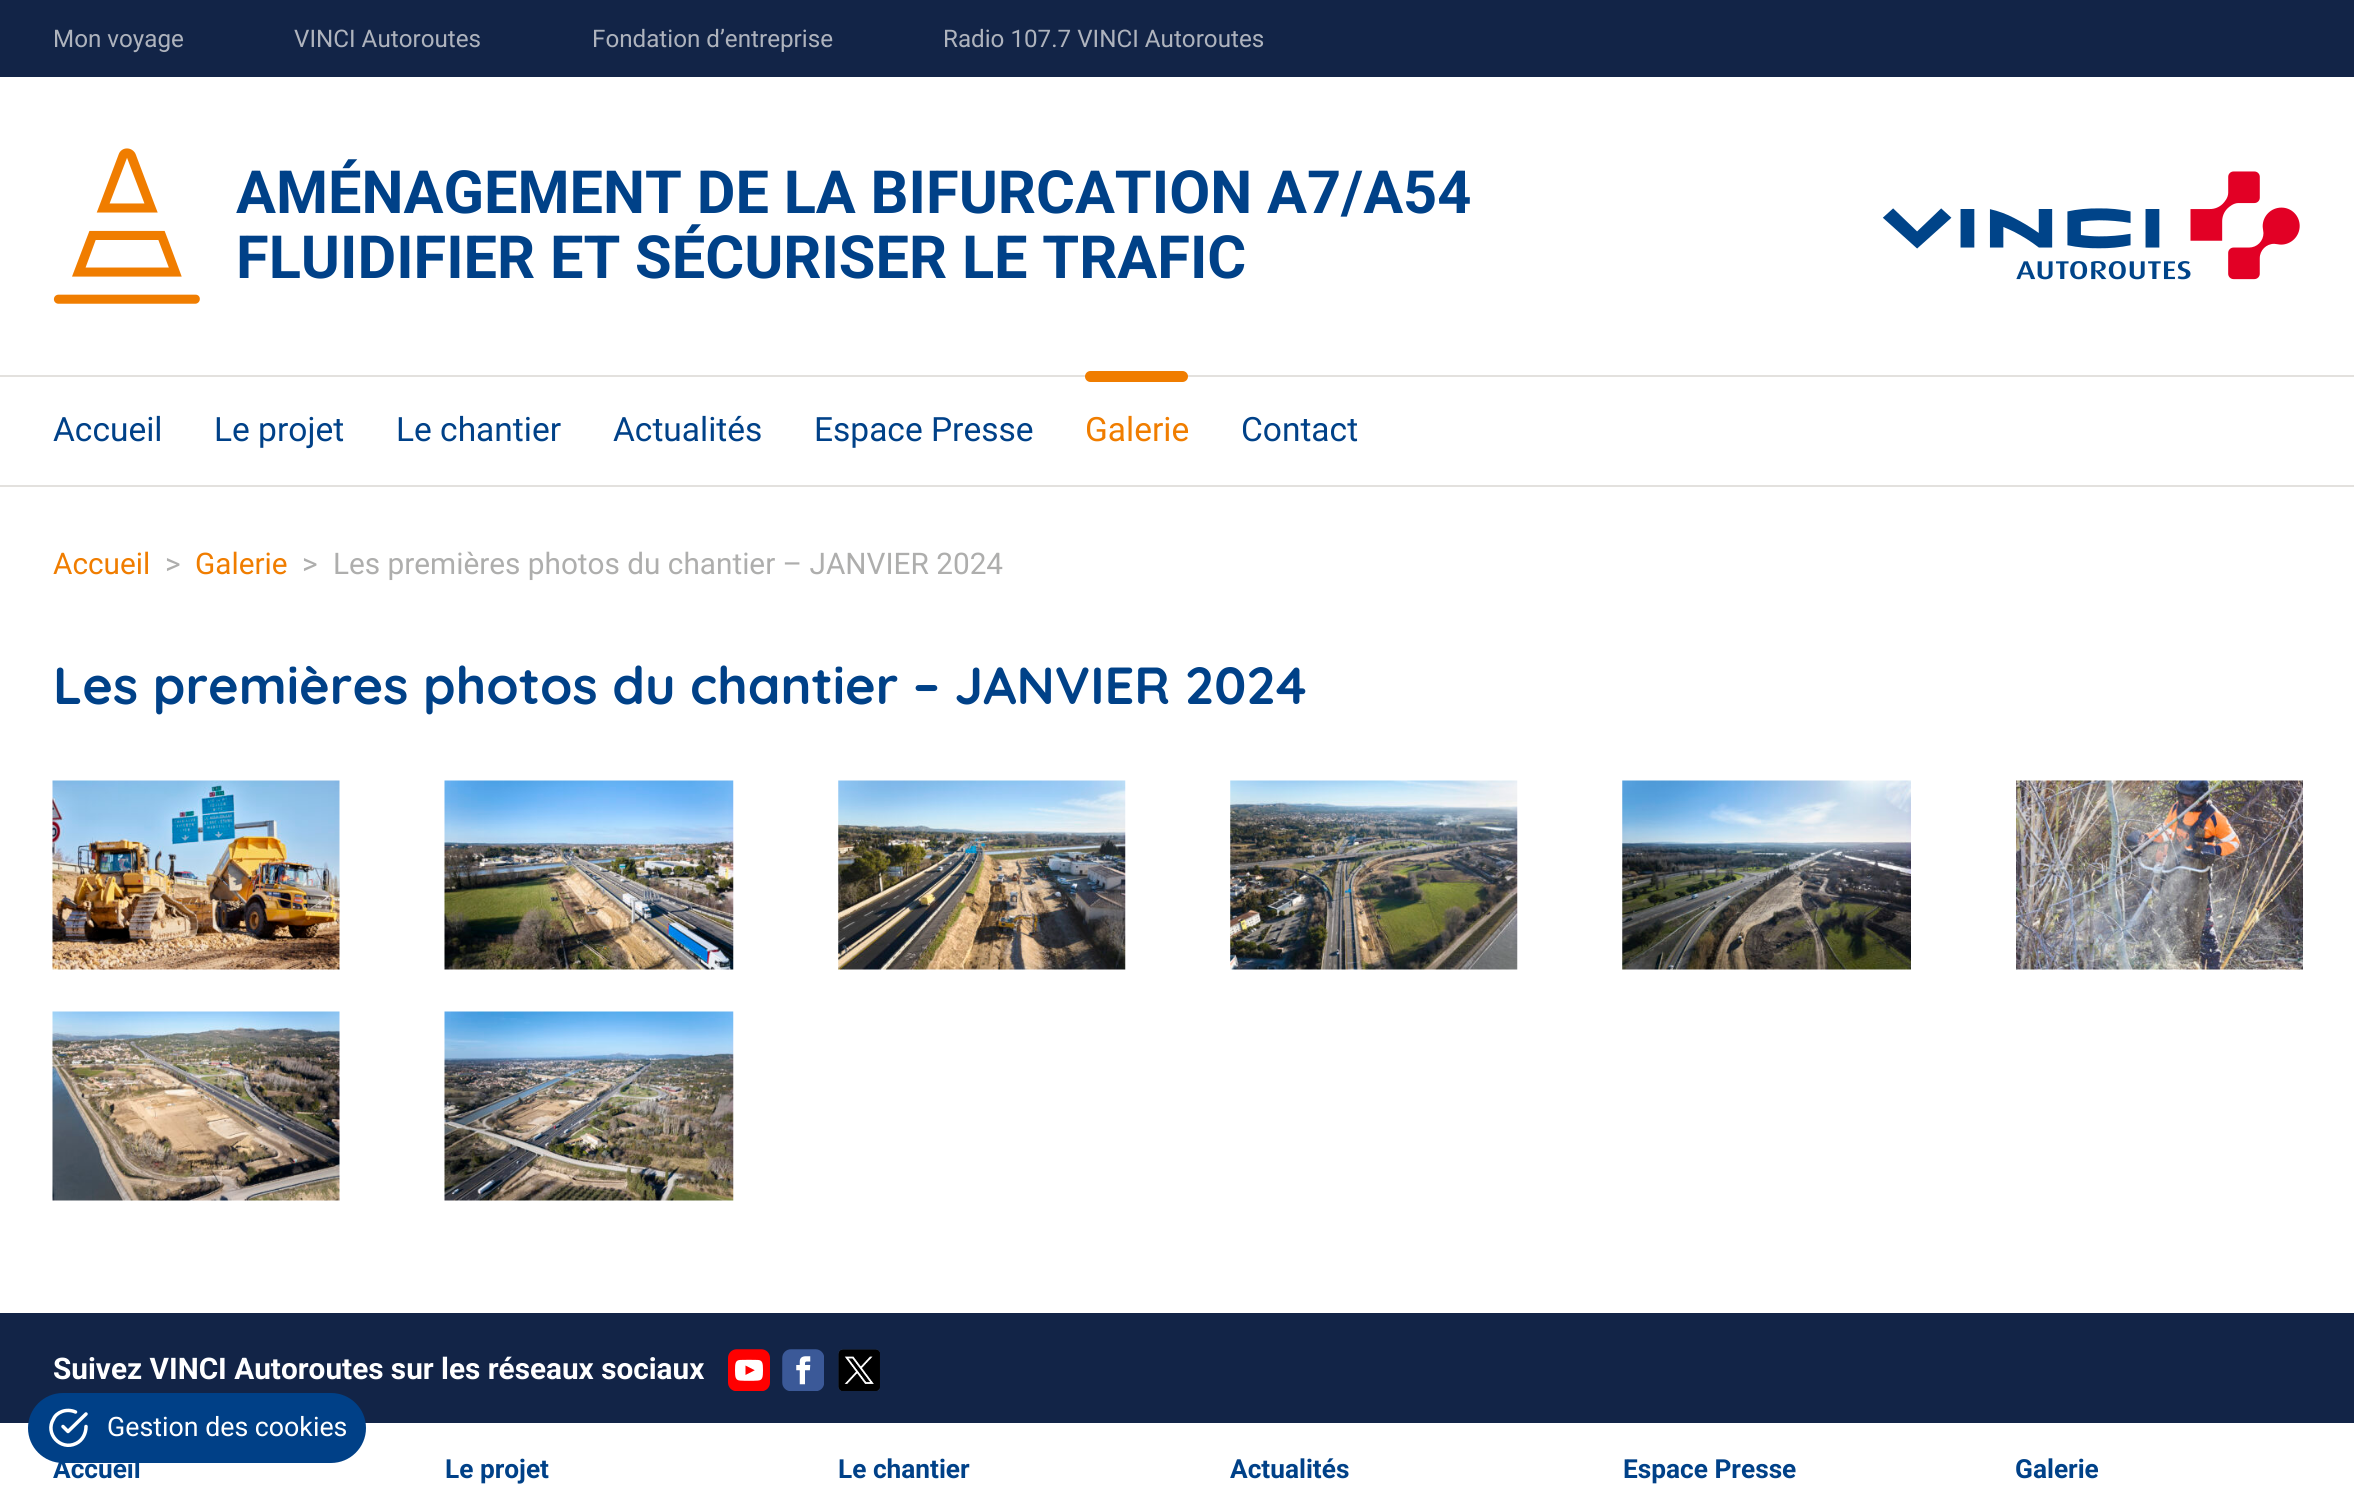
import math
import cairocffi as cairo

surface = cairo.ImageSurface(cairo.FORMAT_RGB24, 2354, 1490)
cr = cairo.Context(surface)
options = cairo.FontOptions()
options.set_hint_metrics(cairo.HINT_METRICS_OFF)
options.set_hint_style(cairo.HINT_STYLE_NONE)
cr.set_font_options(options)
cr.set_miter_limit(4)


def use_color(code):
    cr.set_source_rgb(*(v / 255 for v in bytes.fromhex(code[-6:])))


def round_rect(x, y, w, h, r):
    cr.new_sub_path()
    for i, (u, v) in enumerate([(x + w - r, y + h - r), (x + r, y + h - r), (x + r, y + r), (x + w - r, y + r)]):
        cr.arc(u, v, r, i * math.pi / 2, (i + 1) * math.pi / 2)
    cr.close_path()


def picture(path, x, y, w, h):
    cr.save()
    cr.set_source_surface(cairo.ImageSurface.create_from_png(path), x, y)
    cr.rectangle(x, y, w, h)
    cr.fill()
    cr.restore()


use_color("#ffffff")
cr.paint()
use_color("#122447")
cr.rectangle(0, 0, 2354, 77)
cr.fill()
cr.select_font_face("Roboto")
cr.set_font_size(24.2)
use_color("#aeb3bd")
cr.move_to(53, 47)
cr.show_text("Mon voyage")
cr.move_to(294, 47)
cr.show_text("VINCI Autoroutes")
cr.move_to(592, 47)
cr.show_text("Fondation d’entreprise")
cr.move_to(943, 47)
cr.show_text("Radio 107.7 VINCI Autoroutes")
picture("img1.png", 53, 148, 147, 156)
cr.select_font_face("Roboto", cairo.FONT_SLANT_NORMAL, cairo.FONT_WEIGHT_BOLD)
cr.set_font_size(59.5)
use_color("#004188")
cr.move_to(236, 213)
cr.show_text("AMÉNAGEMENT DE LA BIFURCATION A7/A54")
cr.move_to(236, 278)
cr.show_text("FLUIDIFIER ET SÉCURISER LE TRAFIC")
picture("img2.png", 1882, 171, 418, 109)
use_color("#e3e1de")
cr.rectangle(0, 375, 2354, 2)
cr.fill()
cr.rectangle(0, 485, 2354, 2)
cr.fill()
cr.select_font_face("Roboto")
cr.set_font_size(33.5)
use_color("#004188")
cr.move_to(53, 441)
cr.show_text("Accueil")
cr.move_to(214, 441)
cr.show_text("Le projet")
cr.move_to(396, 441)
cr.show_text("Le chantier")
cr.move_to(613, 441)
cr.show_text("Actualités")
cr.move_to(814, 441)
cr.show_text("Espace Presse")
use_color("#f07d00")
round_rect(1085, 371, 103, 11, 5.5)
cr.fill()
cr.move_to(1085, 441)
cr.show_text("Galerie")
use_color("#004188")
cr.move_to(1241, 441)
cr.show_text("Contact")
cr.set_font_size(29.75)
use_color("#f07d00")
cr.move_to(53, 574)
cr.show_text("Accueil")
use_color("#aeaead")
cr.move_to(165, 574)
cr.show_text(">")
use_color("#f07d00")
cr.move_to(195, 574)
cr.show_text("Galerie")
use_color("#aeaead")
cr.move_to(302, 574)
cr.show_text(">")
cr.move_to(333, 574)
cr.show_text("Les premières photos du chantier – JANVIER 2024")
cr.select_font_face("Quicksand", cairo.FONT_SLANT_NORMAL, cairo.FONT_WEIGHT_BOLD)
cr.set_font_size(52.1)
use_color("#004188")
cr.move_to(53, 704)
cr.show_text("Les premières photos du chantier – JANVIER 2024")
picture("img3.png", 52, 780, 288, 190)
picture("img4.png", 444, 780, 290, 190)
picture("img5.png", 838, 780, 288, 190)
picture("img6.png", 1230, 780, 288, 190)
picture("img7.png", 1622, 780, 289, 190)
picture("img8.png", 2016, 780, 287, 190)
picture("img9.png", 52, 1011, 288, 190)
picture("img10.png", 444, 1011, 290, 190)
use_color("#122447")
cr.rectangle(0, 1313, 2354, 110)
cr.fill()
cr.select_font_face("Roboto", cairo.FONT_SLANT_NORMAL, cairo.FONT_WEIGHT_BOLD)
cr.set_font_size(29.75)
use_color("#ffffff")
cr.move_to(53, 1379)
cr.show_text("Suivez VINCI Autoroutes sur les réseaux sociaux")
picture("img11.png", 728, 1349, 42, 42)
picture("img12.png", 782, 1349, 42, 42)
picture("img13.png", 838, 1349, 42, 42)
cr.set_font_size(26.25)
use_color("#004188")
cr.move_to(53, 1478)
cr.show_text("Accueil")
cr.move_to(445, 1478)
cr.show_text("Le projet")
cr.move_to(838, 1478)
cr.show_text("Le chantier")
cr.move_to(1230, 1478)
cr.show_text("Actualités")
cr.move_to(1623, 1478)
cr.show_text("Espace Presse")
cr.move_to(2015, 1478)
cr.show_text("Galerie")
use_color("#004087")
round_rect(28, 1393, 338, 70, 35)
cr.fill()
cr.new_path()
cr.move_to(86, 1426.5)
cr.curve_to(86, 1433.5, 82.5, 1440.5, 76, 1443.5)
cr.curve_to(60.5, 1451, 44.5, 1433.5, 53.5, 1419)
cr.curve_to(55, 1415.5, 58, 1413, 62, 1411.5)
cr.curve_to(66, 1410, 71, 1410, 75.5, 1412)
cr.move_to(86, 1414)
cr.line_to(68, 1431.5)
cr.line_to(63, 1426.5)
use_color("#ffffff")
cr.set_line_width(3.5)
cr.set_line_cap(cairo.LINE_CAP_ROUND)
cr.set_line_join(cairo.LINE_JOIN_ROUND)
cr.stroke()
cr.select_font_face("Roboto")
cr.set_font_size(26.75)
cr.move_to(107, 1436)
cr.show_text("Gestion des cookies")
surface.write_to_png("result.png")
